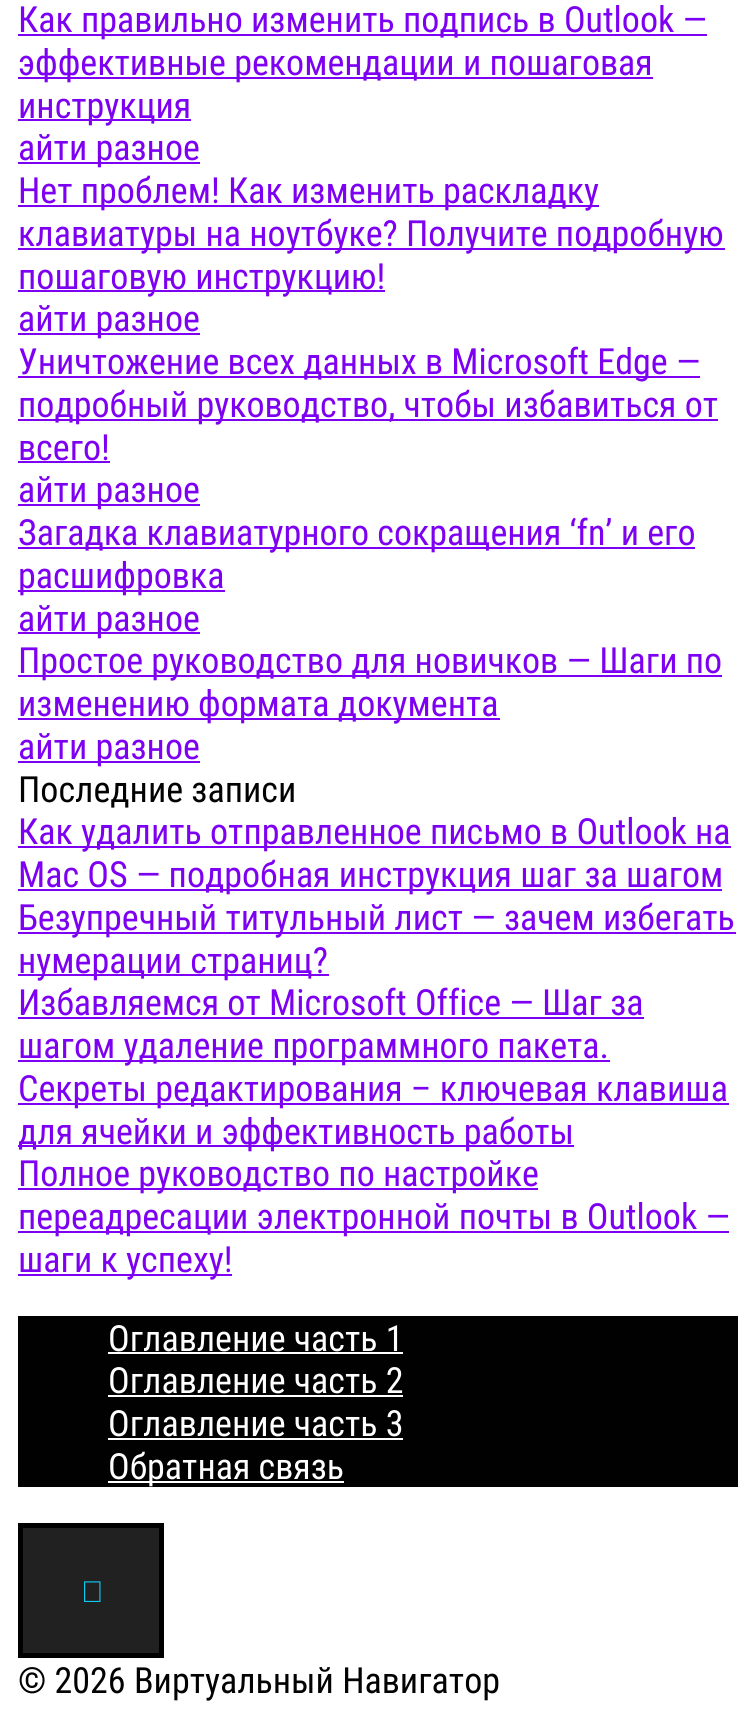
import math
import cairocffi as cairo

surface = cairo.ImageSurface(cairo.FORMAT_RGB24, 755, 1718)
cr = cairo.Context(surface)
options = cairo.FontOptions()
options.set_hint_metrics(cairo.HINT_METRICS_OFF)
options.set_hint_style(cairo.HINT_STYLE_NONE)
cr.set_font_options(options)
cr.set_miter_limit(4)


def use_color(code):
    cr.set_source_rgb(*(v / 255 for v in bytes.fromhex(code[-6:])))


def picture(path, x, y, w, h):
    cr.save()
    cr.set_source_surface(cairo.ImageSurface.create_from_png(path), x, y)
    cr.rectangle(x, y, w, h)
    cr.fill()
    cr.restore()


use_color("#ffffff")
cr.paint()
use_color("#7d00f2")
cr.rectangle(18, 34, 689, 2)
cr.fill()
cr.select_font_face("Roboto Condensed")
cr.set_font_size(36)
cr.move_to(18, 32)
cr.show_text("Как правильно изменить подпись в Outlook —")
cr.rectangle(18, 77, 635, 2)
cr.fill()
cr.move_to(18, 75)
cr.show_text("эффективные рекомендации и пошаговая")
cr.rectangle(18, 119, 173, 2)
cr.fill()
cr.move_to(18, 118)
cr.show_text("инструкция")
cr.rectangle(18, 162, 182, 2)
cr.fill()
cr.move_to(18, 160)
cr.show_text("айти разное")
cr.rectangle(18, 205, 581, 2)
cr.fill()
cr.move_to(18, 203)
cr.show_text("Нет проблем! Как изменить раскладку")
cr.rectangle(18, 248, 707, 2)
cr.fill()
cr.move_to(18, 246)
cr.show_text("клавиатуры на ноутбуке? Получите подробную")
cr.rectangle(18, 290, 367, 2)
cr.fill()
cr.move_to(18, 289)
cr.show_text("пошаговую инструкцию!")
cr.rectangle(18, 333, 182, 2)
cr.fill()
cr.move_to(18, 331)
cr.show_text("айти разное")
cr.rectangle(18, 376, 682, 2)
cr.fill()
cr.move_to(18, 374)
cr.show_text("Уничтожение всех данных в Microsoft Edge —")
cr.rectangle(18, 419, 700, 2)
cr.fill()
cr.move_to(18, 417)
cr.show_text("подробный руководство, чтобы избавиться от")
cr.move_to(18, 460)
cr.show_text("всего!")
cr.rectangle(18, 461, 92, 2)
cr.fill()
cr.rectangle(18, 504, 182, 2)
cr.fill()
cr.move_to(18, 502)
cr.show_text("айти разное")
cr.rectangle(18, 547, 677, 2)
cr.fill()
cr.move_to(18, 545)
cr.show_text("Загадка клавиатурного сокращения ‘fn’ и его")
cr.rectangle(18, 590, 207, 2)
cr.fill()
cr.move_to(18, 588)
cr.show_text("расшифровка")
cr.rectangle(18, 632, 182, 2)
cr.fill()
cr.move_to(18, 631)
cr.show_text("айти разное")
cr.rectangle(18, 675, 704, 2)
cr.fill()
cr.move_to(18, 673)
cr.show_text("Простое руководство для новичков — Шаги по")
cr.rectangle(18, 718, 482, 2)
cr.fill()
cr.move_to(18, 716)
cr.show_text("изменению формата документа")
cr.rectangle(18, 761, 182, 2)
cr.fill()
cr.move_to(18, 759)
cr.show_text("айти разное")
use_color("#020202")
cr.move_to(18, 802)
cr.show_text("Последние записи")
use_color("#7d00f2")
cr.rectangle(18, 846, 713, 2)
cr.fill()
cr.move_to(18, 844)
cr.show_text("Как удалить отправленное письмо в Outlook на")
cr.rectangle(18, 889, 704, 2)
cr.fill()
cr.move_to(18, 887)
cr.show_text("Mac OS — подробная инструкция шаг за шагом")
cr.rectangle(18, 932, 718, 2)
cr.fill()
cr.move_to(18, 930)
cr.show_text("Безупречный титульный лист — зачем избегать")
cr.rectangle(18, 974, 311, 2)
cr.fill()
cr.move_to(18, 973)
cr.show_text("нумерации страниц?")
cr.move_to(18, 1015)
cr.show_text("Избавляемся от Microsoft Office — Шаг за")
cr.rectangle(18, 1017, 626, 2)
cr.fill()
cr.rectangle(18, 1060, 592, 2)
cr.fill()
cr.move_to(18, 1058)
cr.show_text("шагом удаление программного пакета.")
cr.rectangle(18, 1103, 711, 2)
cr.fill()
cr.move_to(18, 1101)
cr.show_text("Секреты редактирования – ключевая клавиша")
cr.rectangle(18, 1145, 556, 2)
cr.fill()
cr.move_to(18, 1144)
cr.show_text("для ячейки и эффективность работы")
cr.rectangle(18, 1188, 520, 2)
cr.fill()
cr.move_to(18, 1186)
cr.show_text("Полное руководство по настройке")
cr.rectangle(18, 1231, 711, 2)
cr.fill()
cr.move_to(18, 1229)
cr.show_text("переадресации электронной почты в Outlook —")
cr.rectangle(18, 1274, 214, 2)
cr.fill()
cr.move_to(18, 1272)
cr.show_text("шаги к успеху!")
use_color("#020101")
cr.rectangle(18, 1316, 720, 171)
cr.fill()
use_color("#ffffff")
cr.move_to(108, 1351)
cr.show_text("Оглавление часть 1")
cr.rectangle(108, 1352, 295, 2)
cr.fill()
cr.move_to(108, 1393)
cr.show_text("Оглавление часть 2")
cr.rectangle(108, 1395, 295, 2)
cr.fill()
cr.move_to(108, 1436)
cr.show_text("Оглавление часть 3")
cr.rectangle(108, 1438, 295, 2)
cr.fill()
cr.rectangle(108, 1481, 236, 2)
cr.fill()
cr.move_to(108, 1479)
cr.show_text("Обратная связь")
use_color("#212121")
cr.rectangle(20.5, 1525.5, 141, 130)
cr.fill_preserve()
use_color("#000000")
cr.set_line_width(5)
cr.stroke()
picture("img1.png", 84, 1581, 17, 21)
use_color("#020202")
cr.move_to(18, 1693)
cr.show_text("© 2026 Виртуальный Навигатор")
surface.write_to_png("result.png")
